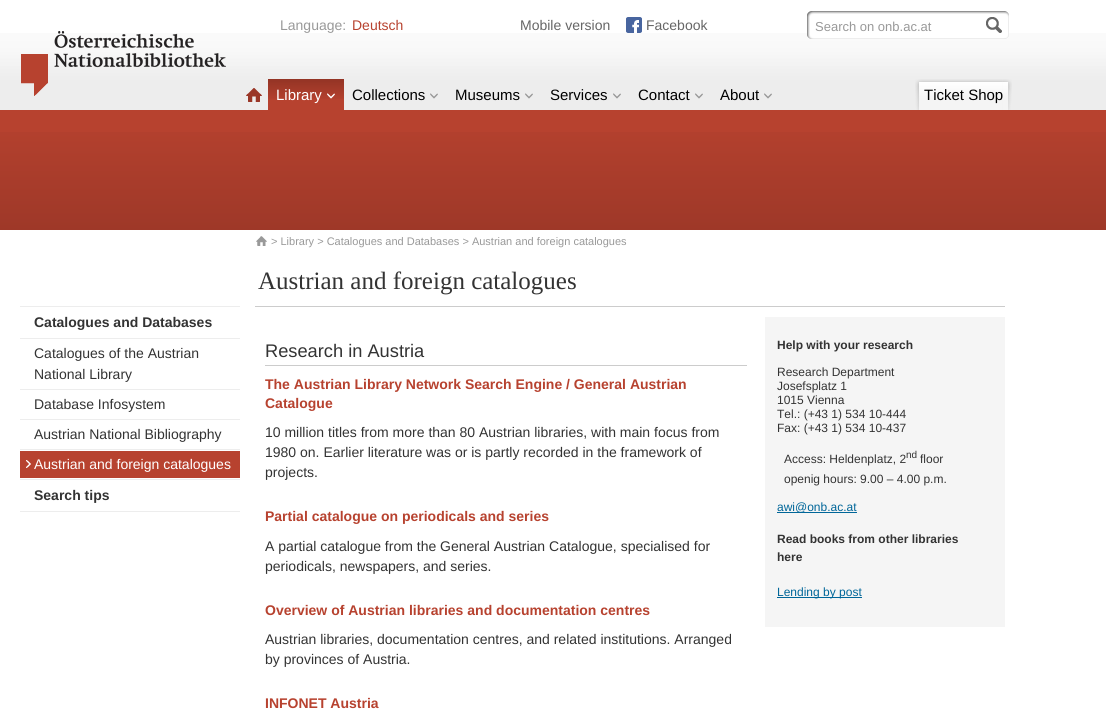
import math
import cairocffi as cairo

surface = cairo.ImageSurface(cairo.FORMAT_RGB24, 1106, 714)
cr = cairo.Context(surface)
options = cairo.FontOptions()
options.set_hint_metrics(cairo.HINT_METRICS_OFF)
options.set_hint_style(cairo.HINT_STYLE_NONE)
cr.set_font_options(options)
cr.set_miter_limit(4)


def use_color(code):
    cr.set_source_rgb(*(v / 255 for v in bytes.fromhex(code[-6:])))


def picture(path, x, y, w, h):
    cr.save()
    cr.set_source_surface(cairo.ImageSurface.create_from_png(path), x, y)
    cr.rectangle(x, y, w, h)
    cr.fill()
    cr.restore()


use_color("#ffffff")
cr.paint()
picture("img1.png", 0, 33, 1106, 77)
cr.select_font_face("Liberation Sans")
cr.set_font_size(14)
use_color("#999999")
cr.move_to(280, 30)
cr.show_text("Language:")
use_color("#b7422f")
cr.move_to(352, 30)
cr.show_text("Deutsch")
use_color("#666666")
cr.move_to(520, 30)
cr.show_text("Mobile version")
picture("img2.png", 626, 17, 16, 16)
cr.move_to(646, 30)
cr.show_text("Facebook")
picture("img3.png", 807, 11, 202, 28)
cr.set_font_size(13)
use_color("#999999")
cr.move_to(815, 31)
cr.show_text("Search on onb.ac.at")
picture("img4.png", 986, 17, 16, 16)
picture("img5.png", 21, 31, 205, 65)
picture("img6.png", 246, 88, 16, 14)
use_color("#b7422f")
cr.rectangle(268, 99, 76, 11)
cr.fill()
picture("img7.png", 268, 79, 76, 20)
cr.set_font_size(15)
use_color("#ffffff")
cr.move_to(276, 100)
cr.show_text("Library")
picture("img8.png", 327, 93, 8, 6)
use_color("#000000")
cr.move_to(352, 100)
cr.show_text("Collections")
picture("img9.png", 430, 93, 8, 6)
cr.move_to(455, 100)
cr.show_text("Museums")
picture("img9.png", 525, 93, 8, 6)
cr.move_to(550, 100)
cr.show_text("Services")
picture("img9.png", 613, 93, 8, 6)
cr.move_to(638, 100)
cr.show_text("Contact")
picture("img9.png", 695, 93, 8, 6)
cr.move_to(720, 100)
cr.show_text("About")
picture("img9.png", 764, 93, 8, 6)
picture("img10.png", 915, 79, 87, 31)
picture("img11.png", 1002, 79, 10, 31)
cr.move_to(924, 100)
cr.show_text("Ticket Shop")
use_color("#b7422f")
cr.rectangle(0, 110, 1106, 22)
cr.fill()
picture("img12.png", 0, 132, 1106, 98)
picture("img13.png", 256, 236, 11, 10)
cr.set_font_size(11)
use_color("#999999")
cr.move_to(271, 245)
cr.show_text("> Library > Catalogues and Databases > Austrian and foreign catalogues")
use_color("#ededed")
cr.rectangle(20, 306, 220, 1)
cr.fill()
cr.rectangle(20, 338, 220, 1)
cr.fill()
cr.select_font_face("Liberation Sans", cairo.FONT_SLANT_NORMAL, cairo.FONT_WEIGHT_BOLD)
cr.set_font_size(14)
use_color("#333333")
cr.move_to(34, 327)
cr.show_text("Catalogues and Databases")
use_color("#ededed")
cr.rectangle(20, 389, 220, 1)
cr.fill()
cr.select_font_face("Liberation Sans")
use_color("#333333")
cr.move_to(34, 358)
cr.show_text("Catalogues of the Austrian")
cr.move_to(34, 379)
cr.show_text("National Library")
use_color("#ededed")
cr.rectangle(20, 419, 220, 1)
cr.fill()
use_color("#333333")
cr.move_to(34, 409)
cr.show_text("Database Infosystem")
use_color("#ededed")
cr.rectangle(20, 449, 220, 1)
cr.fill()
use_color("#333333")
cr.move_to(34, 439)
cr.show_text("Austrian National Bibliography")
use_color("#ededed")
cr.rectangle(20, 479, 220, 1)
cr.fill()
use_color("#b7422f")
cr.rectangle(20, 451, 220, 27)
cr.fill()
picture("img14.png", 26, 460, 5, 8)
use_color("#ffffff")
cr.move_to(34, 469)
cr.show_text("Austrian and foreign catalogues")
use_color("#ededed")
cr.rectangle(20, 511, 220, 1)
cr.fill()
cr.select_font_face("Liberation Sans", cairo.FONT_SLANT_NORMAL, cairo.FONT_WEIGHT_BOLD)
use_color("#333333")
cr.move_to(34, 500)
cr.show_text("Search tips")
use_color("#cccccc")
cr.rectangle(255, 306, 750, 1)
cr.fill()
cr.select_font_face("Liberation Serif")
cr.set_font_size(25)
use_color("#333333")
cr.move_to(258, 289)
cr.show_text("Austrian and foreign catalogues")
use_color("#cccccc")
cr.rectangle(265, 365, 482, 1)
cr.fill()
cr.select_font_face("Liberation Sans")
cr.set_font_size(18.25)
use_color("#333333")
cr.move_to(265, 357)
cr.show_text("Research in Austria")
cr.select_font_face("Liberation Sans", cairo.FONT_SLANT_NORMAL, cairo.FONT_WEIGHT_BOLD)
cr.set_font_size(14)
use_color("#b7422f")
cr.move_to(265, 389)
cr.show_text("The Austrian Library Network Search Engine / General Austrian")
cr.move_to(265, 408)
cr.show_text("Catalogue")
cr.select_font_face("Liberation Sans")
use_color("#333333")
cr.move_to(265, 437)
cr.show_text("10 million titles from more than 80 Austrian libraries, with main focus from")
cr.move_to(265, 457)
cr.show_text("1980 on. Earlier literature was or is partly recorded in the framework of")
cr.move_to(265, 477)
cr.show_text("projects.")
cr.select_font_face("Liberation Sans", cairo.FONT_SLANT_NORMAL, cairo.FONT_WEIGHT_BOLD)
use_color("#b7422f")
cr.move_to(265, 521)
cr.show_text("Partial catalogue on periodicals and series")
cr.select_font_face("Liberation Sans")
use_color("#333333")
cr.move_to(265, 551)
cr.show_text("A partial catalogue from the General Austrian Catalogue, specialised for")
cr.move_to(265, 571)
cr.show_text("periodicals, newspapers, and series.")
cr.select_font_face("Liberation Sans", cairo.FONT_SLANT_NORMAL, cairo.FONT_WEIGHT_BOLD)
use_color("#b7422f")
cr.move_to(265, 615)
cr.show_text("Overview of Austrian libraries and documentation centres")
cr.select_font_face("Liberation Sans")
use_color("#333333")
cr.move_to(265, 644)
cr.show_text("Austrian libraries, documentation centres, and related institutions. Arranged")
cr.move_to(265, 664)
cr.show_text("by provinces of Austria.")
cr.select_font_face("Liberation Sans", cairo.FONT_SLANT_NORMAL, cairo.FONT_WEIGHT_BOLD)
use_color("#b7422f")
cr.move_to(265, 708)
cr.show_text("INFONET Austria")
use_color("#f5f5f5")
cr.rectangle(765, 317, 240, 310)
cr.fill()
cr.set_font_size(12)
use_color("#333333")
cr.move_to(777, 349)
cr.show_text("Help with your research")
cr.select_font_face("Liberation Sans")
cr.move_to(777, 376)
cr.show_text("Research Department")
cr.move_to(777, 390)
cr.show_text("Josefsplatz 1")
cr.move_to(777, 404)
cr.show_text("1015 Vienna")
cr.move_to(777, 418)
cr.show_text("Tel.: (+43 1) 534 10-444")
cr.move_to(777, 432)
cr.show_text("Fax: (+43 1) 534 10-437")
cr.move_to(784, 463)
cr.show_text("Access: Heldenplatz, 2")
cr.set_font_size(10)
cr.move_to(906, 458)
cr.show_text("nd")
cr.set_font_size(12)
cr.move_to(920, 463)
cr.show_text("floor")
cr.move_to(784, 483)
cr.show_text("openig hours: 9.00 – 4.00 p.m.")
use_color("#006699")
cr.rectangle(777, 512, 80, 1)
cr.fill()
cr.move_to(777, 511)
cr.show_text("awi@onb.ac.at")
cr.select_font_face("Liberation Sans", cairo.FONT_SLANT_NORMAL, cairo.FONT_WEIGHT_BOLD)
use_color("#333333")
cr.move_to(777, 543)
cr.show_text("Read books from other libraries")
cr.move_to(777, 561)
cr.show_text("here")
use_color("#006699")
cr.rectangle(777, 597, 85, 1)
cr.fill()
cr.select_font_face("Liberation Sans")
cr.move_to(777, 596)
cr.show_text("Lending by post")
surface.write_to_png("result.png")
